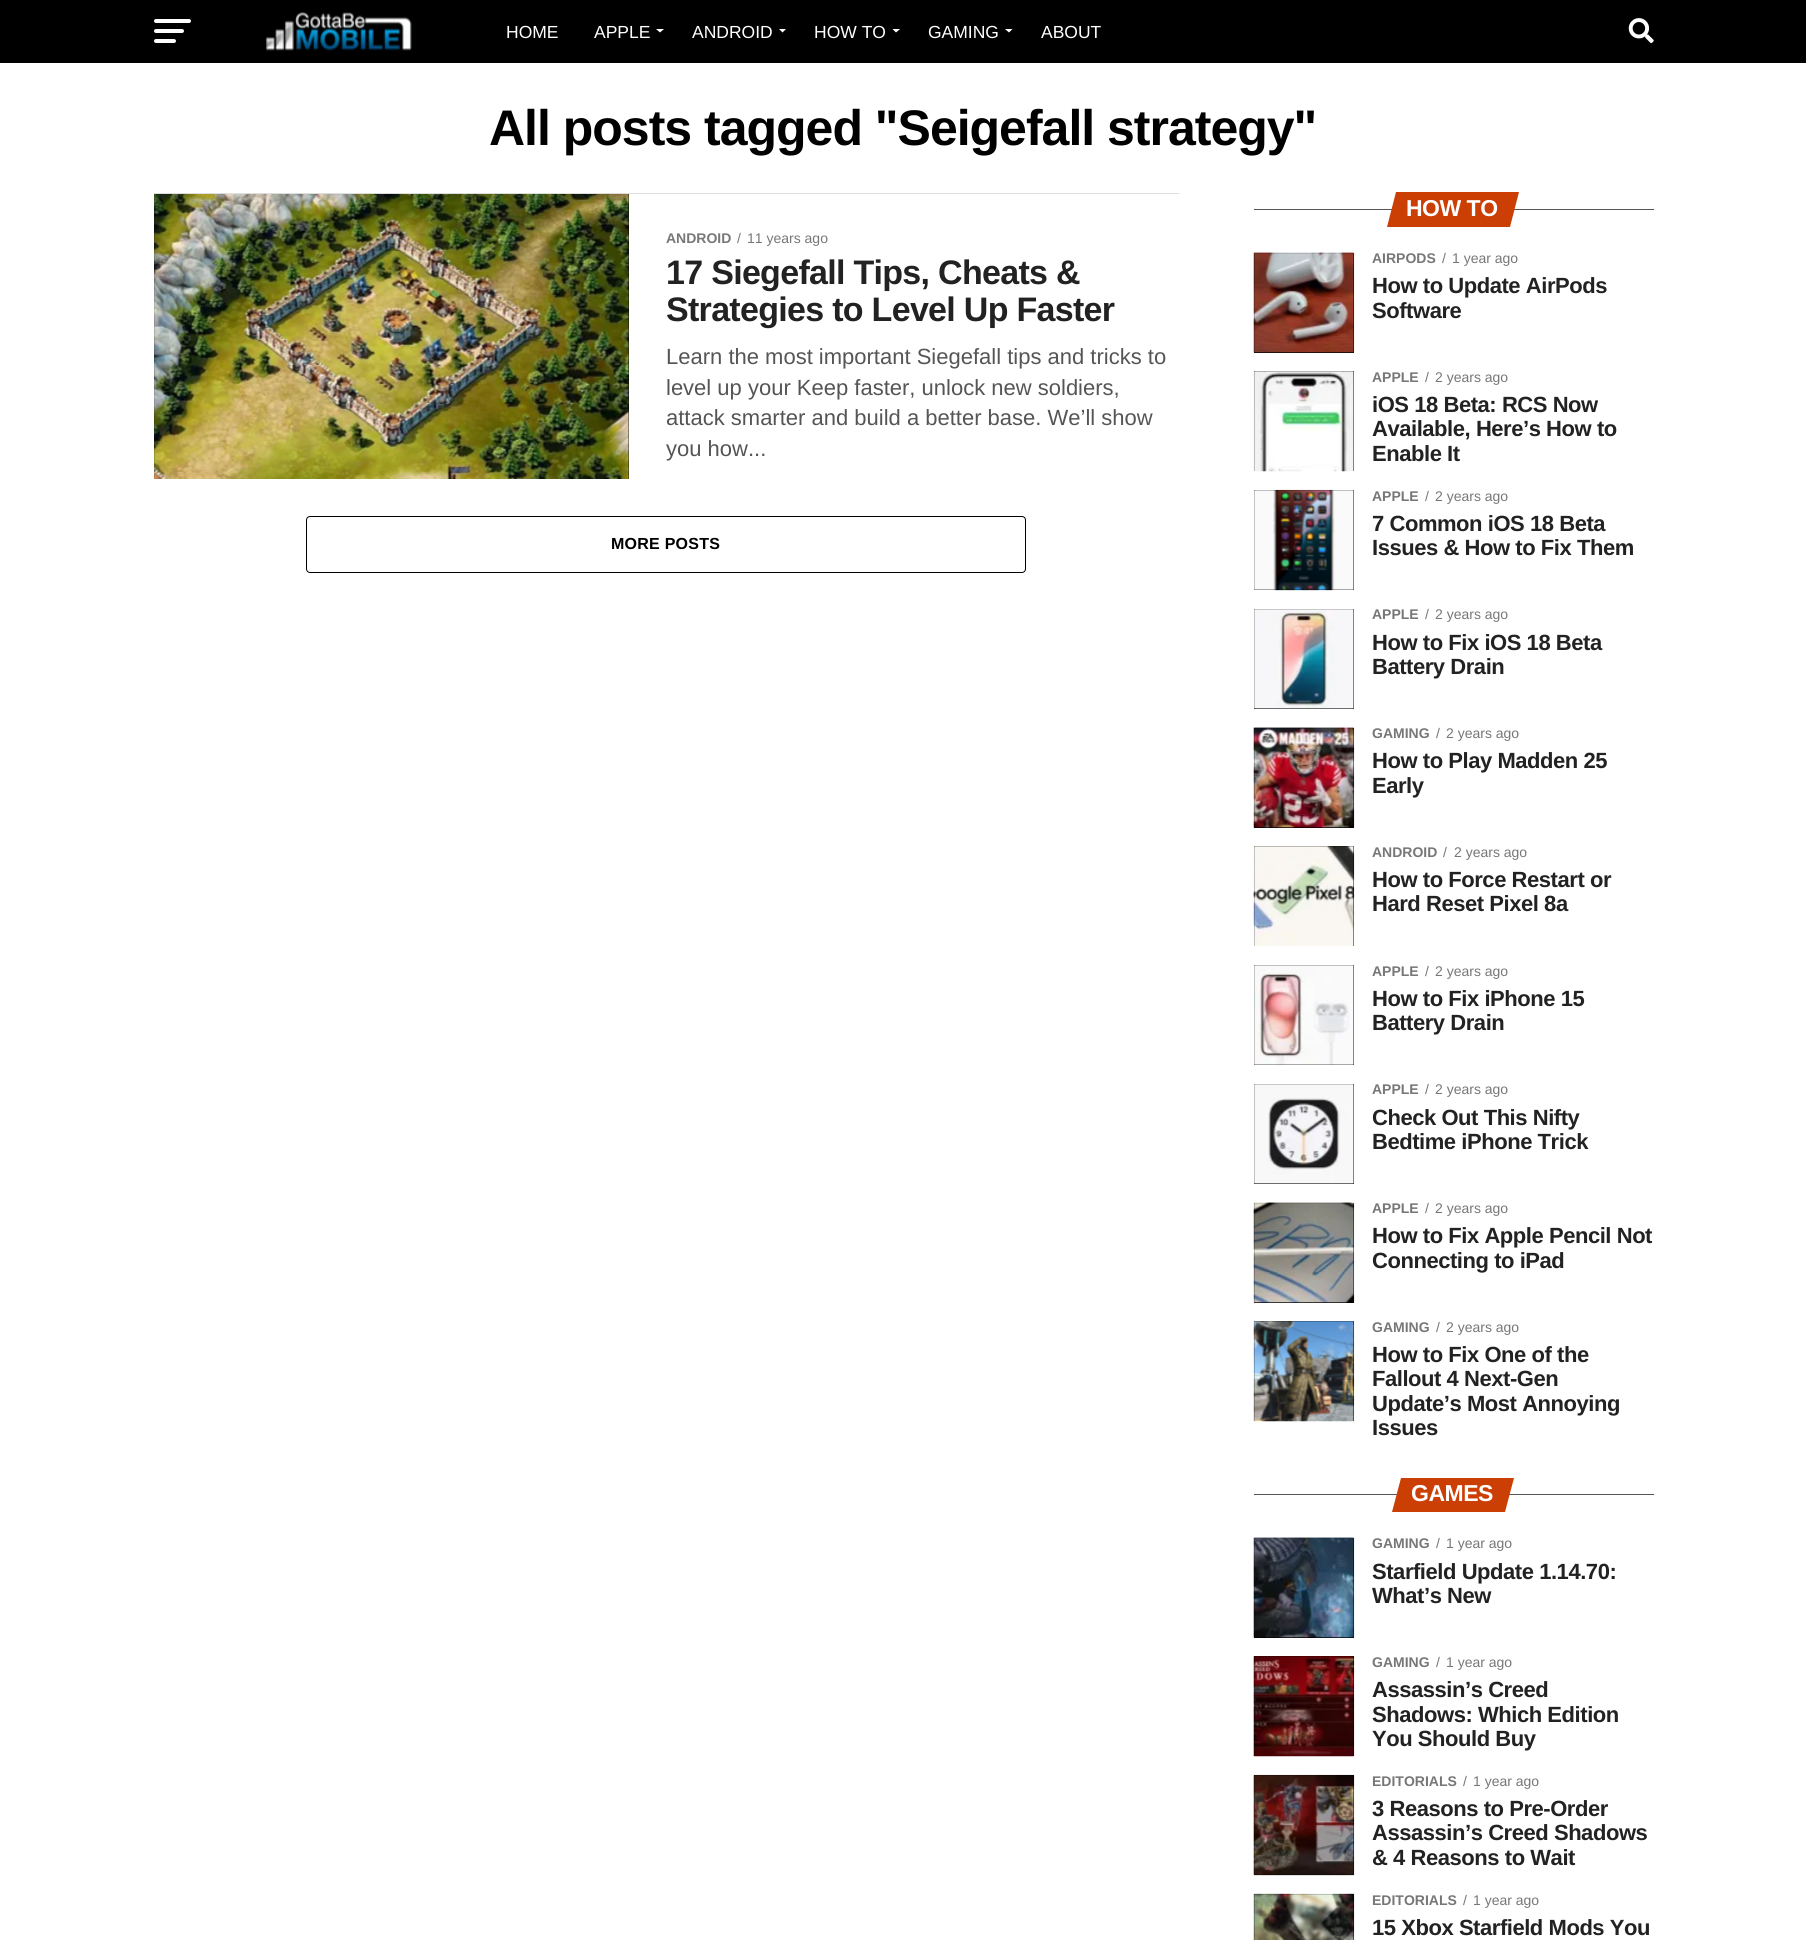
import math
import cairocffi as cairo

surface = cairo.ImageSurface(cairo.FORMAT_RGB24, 1806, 1940)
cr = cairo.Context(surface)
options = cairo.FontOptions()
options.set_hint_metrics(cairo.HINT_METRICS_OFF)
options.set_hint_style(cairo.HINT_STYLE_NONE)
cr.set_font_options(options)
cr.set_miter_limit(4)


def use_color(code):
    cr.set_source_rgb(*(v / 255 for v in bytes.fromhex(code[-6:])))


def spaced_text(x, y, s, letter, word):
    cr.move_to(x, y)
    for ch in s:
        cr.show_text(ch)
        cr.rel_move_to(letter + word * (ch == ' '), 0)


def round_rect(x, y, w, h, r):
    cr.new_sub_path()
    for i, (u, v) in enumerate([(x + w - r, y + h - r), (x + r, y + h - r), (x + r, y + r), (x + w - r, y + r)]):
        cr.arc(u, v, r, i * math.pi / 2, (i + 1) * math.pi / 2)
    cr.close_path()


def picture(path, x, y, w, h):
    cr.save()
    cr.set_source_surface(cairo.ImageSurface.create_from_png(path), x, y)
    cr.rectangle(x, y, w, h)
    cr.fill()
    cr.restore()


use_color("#ffffff")
cr.paint()
use_color("#000000")
cr.rectangle(0, 0, 1806, 63)
cr.fill()
use_color("#ffffff")
round_rect(154, 19, 37, 4, 2)
cr.fill()
round_rect(154, 29, 30, 4, 2)
cr.fill()
round_rect(154, 39, 22, 4, 2)
cr.fill()
picture("img1.png", 265, 12, 147, 39)
cr.select_font_face("Liberation Sans")
cr.set_font_size(17.5)
cr.move_to(506, 38)
cr.show_text("HOME")
cr.move_to(594, 38)
cr.show_text("APPLE")
cr.new_path()
cr.move_to(656, 29)
cr.line_to(664, 29)
cr.line_to(660, 32.5)
cr.close_path()
cr.fill()
cr.move_to(692, 38)
cr.show_text("ANDROID")
cr.new_path()
cr.move_to(779, 29)
cr.line_to(786, 29)
cr.line_to(782.5, 32.5)
cr.close_path()
cr.fill()
cr.move_to(814, 38)
cr.show_text("HOW TO")
cr.new_path()
cr.move_to(892.5, 29)
cr.line_to(900, 29)
cr.line_to(896, 32.5)
cr.close_path()
cr.fill()
cr.move_to(928, 38)
cr.show_text("GAMING")
cr.new_path()
cr.move_to(1005, 29)
cr.line_to(1012.5, 29)
cr.line_to(1009, 32.5)
cr.close_path()
cr.fill()
cr.move_to(1041, 38)
cr.show_text("ABOUT")
picture("img2.png", 1628, 18, 26, 26)
cr.select_font_face("Liberation Sans", cairo.FONT_SLANT_NORMAL, cairo.FONT_WEIGHT_BOLD)
cr.set_font_size(50)
use_color("#000000")
spaced_text(489, 145, "All posts tagged \"Seigefall strategy\"", -1, 0)
use_color("#dddddd")
cr.rectangle(154, 193, 1025, 1)
cr.fill()
use_color("#000000")
cr.rectangle(154, 194, 475, 285)
cr.fill()
picture("img3.png", 154, 194, 475, 285)
cr.set_font_size(14)
use_color("#777777")
cr.move_to(666, 243)
cr.show_text("ANDROID")
cr.select_font_face("Liberation Sans")
cr.move_to(737, 243)
cr.show_text("/")
cr.move_to(747, 243)
cr.show_text("11 years ago")
cr.select_font_face("Liberation Sans", cairo.FONT_SLANT_NORMAL, cairo.FONT_WEIGHT_BOLD)
cr.set_font_size(34)
use_color("#222222")
spaced_text(666, 284, "17 Siegefall Tips, Cheats &", -0.7, 0)
spaced_text(666, 321, "Strategies to Level Up Faster", -0.7, 0)
cr.select_font_face("Liberation Sans")
cr.set_font_size(22)
use_color("#555555")
cr.move_to(666, 364)
cr.show_text("Learn the most important Siegefall tips and tricks to")
cr.move_to(666, 395)
cr.show_text("level up your Keep faster, unlock new soldiers,")
cr.move_to(666, 425)
cr.show_text("attack smarter and build a better base. We’ll show")
cr.move_to(666, 456)
cr.show_text("you how...")
round_rect(306.5, 516.5, 719, 56, 3.5)
use_color("#000000")
cr.set_line_width(1)
cr.stroke()
cr.select_font_face("Liberation Sans", cairo.FONT_SLANT_NORMAL, cairo.FONT_WEIGHT_BOLD)
cr.set_font_size(16)
spaced_text(611, 549, "MORE POSTS", 0.25, 0)
use_color("#555555")
cr.rectangle(1254, 209, 400, 1)
cr.fill()
use_color("#cb3f04")
cr.new_path()
cr.move_to(1396, 192)
cr.line_to(1519, 192)
cr.line_to(1510, 227)
cr.line_to(1387, 227)
cr.close_path()
cr.fill()
cr.set_font_size(23)
use_color("#ffffff")
spaced_text(1406, 216, "HOW TO", -0.5, 0)
use_color("#000000")
cr.rectangle(1254, 253, 100, 100)
cr.fill()
picture("img4.png", 1253, 252, 102, 101)
cr.set_font_size(14)
use_color("#777777")
cr.move_to(1372, 263)
cr.show_text("AIRPODS")
cr.select_font_face("Liberation Sans")
cr.move_to(1442, 263)
cr.show_text("/")
cr.move_to(1452, 263)
cr.show_text("1 year ago")
cr.select_font_face("Liberation Sans", cairo.FONT_SLANT_NORMAL, cairo.FONT_WEIGHT_BOLD)
cr.set_font_size(22)
use_color("#222222")
spaced_text(1372, 293, "How to Update AirPods", -0.45, 0)
spaced_text(1372, 318, "Software", -0.45, 0)
use_color("#000000")
cr.rectangle(1254, 371, 100, 100)
cr.fill()
picture("img5.png", 1253, 371, 101, 101)
cr.set_font_size(14)
use_color("#777777")
cr.move_to(1372, 382)
cr.show_text("APPLE")
cr.select_font_face("Liberation Sans")
cr.move_to(1425, 382)
cr.show_text("/")
cr.move_to(1435, 382)
cr.show_text("2 years ago")
cr.select_font_face("Liberation Sans", cairo.FONT_SLANT_NORMAL, cairo.FONT_WEIGHT_BOLD)
cr.set_font_size(22)
use_color("#222222")
spaced_text(1372, 412, "iOS 18 Beta: RCS Now", -0.45, 0)
spaced_text(1372, 436, "Available, Here’s How to", -0.45, 0)
spaced_text(1372, 461, "Enable It", -0.45, 0)
use_color("#000000")
cr.rectangle(1254, 490, 100, 100)
cr.fill()
picture("img6.png", 1254, 489, 100, 102)
cr.set_font_size(14)
use_color("#777777")
cr.move_to(1372, 501)
cr.show_text("APPLE")
cr.select_font_face("Liberation Sans")
cr.move_to(1425, 501)
cr.show_text("/")
cr.move_to(1435, 501)
cr.show_text("2 years ago")
cr.select_font_face("Liberation Sans", cairo.FONT_SLANT_NORMAL, cairo.FONT_WEIGHT_BOLD)
cr.set_font_size(22)
use_color("#222222")
spaced_text(1372, 531, "7 Common iOS 18 Beta", -0.45, 0)
spaced_text(1372, 555, "Issues & How to Fix Them", -0.45, 0)
use_color("#000000")
cr.rectangle(1254, 609, 100, 100)
cr.fill()
picture("img7.png", 1254, 609, 100, 100)
cr.set_font_size(14)
use_color("#777777")
cr.move_to(1372, 619)
cr.show_text("APPLE")
cr.select_font_face("Liberation Sans")
cr.move_to(1425, 619)
cr.show_text("/")
cr.move_to(1435, 619)
cr.show_text("2 years ago")
cr.select_font_face("Liberation Sans", cairo.FONT_SLANT_NORMAL, cairo.FONT_WEIGHT_BOLD)
cr.set_font_size(22)
use_color("#222222")
spaced_text(1372, 650, "How to Fix iOS 18 Beta", -0.45, 0)
spaced_text(1372, 674, "Battery Drain", -0.45, 0)
use_color("#000000")
cr.rectangle(1254, 728, 100, 100)
cr.fill()
picture("img8.png", 1253, 727, 102, 101)
cr.set_font_size(14)
use_color("#777777")
cr.move_to(1372, 738)
cr.show_text("GAMING")
cr.select_font_face("Liberation Sans")
cr.move_to(1436, 738)
cr.show_text("/")
cr.move_to(1446, 738)
cr.show_text("2 years ago")
cr.select_font_face("Liberation Sans", cairo.FONT_SLANT_NORMAL, cairo.FONT_WEIGHT_BOLD)
cr.set_font_size(22)
use_color("#222222")
spaced_text(1372, 768, "How to Play Madden 25", -0.45, 0)
spaced_text(1372, 793, "Early", -0.45, 0)
use_color("#000000")
cr.rectangle(1254, 846, 100, 100)
cr.fill()
picture("img9.png", 1253, 846, 102, 100)
cr.set_font_size(14)
use_color("#777777")
cr.move_to(1372, 857)
cr.show_text("ANDROID")
cr.select_font_face("Liberation Sans")
cr.move_to(1443, 857)
cr.show_text("/")
cr.move_to(1454, 857)
cr.show_text("2 years ago")
cr.select_font_face("Liberation Sans", cairo.FONT_SLANT_NORMAL, cairo.FONT_WEIGHT_BOLD)
cr.set_font_size(22)
use_color("#222222")
spaced_text(1372, 887, "How to Force Restart or", -0.45, 0)
spaced_text(1372, 911, "Hard Reset Pixel 8a", -0.45, 0)
use_color("#000000")
cr.rectangle(1254, 965, 100, 100)
cr.fill()
picture("img10.png", 1254, 965, 100, 100)
cr.set_font_size(14)
use_color("#777777")
cr.move_to(1372, 976)
cr.show_text("APPLE")
cr.select_font_face("Liberation Sans")
cr.move_to(1425, 976)
cr.show_text("/")
cr.move_to(1435, 976)
cr.show_text("2 years ago")
cr.select_font_face("Liberation Sans", cairo.FONT_SLANT_NORMAL, cairo.FONT_WEIGHT_BOLD)
cr.set_font_size(22)
use_color("#222222")
spaced_text(1372, 1006, "How to Fix iPhone 15", -0.45, 0)
spaced_text(1372, 1030, "Battery Drain", -0.45, 0)
use_color("#000000")
cr.rectangle(1254, 1084, 100, 100)
cr.fill()
picture("img11.png", 1254, 1084, 100, 100)
cr.set_font_size(14)
use_color("#777777")
cr.move_to(1372, 1094)
cr.show_text("APPLE")
cr.select_font_face("Liberation Sans")
cr.move_to(1425, 1094)
cr.show_text("/")
cr.move_to(1435, 1094)
cr.show_text("2 years ago")
cr.select_font_face("Liberation Sans", cairo.FONT_SLANT_NORMAL, cairo.FONT_WEIGHT_BOLD)
cr.set_font_size(22)
use_color("#222222")
spaced_text(1372, 1125, "Check Out This Nifty", -0.45, 0)
spaced_text(1372, 1149, "Bedtime iPhone Trick", -0.45, 0)
use_color("#000000")
cr.rectangle(1254, 1203, 100, 100)
cr.fill()
picture("img12.png", 1253, 1202, 102, 101)
cr.set_font_size(14)
use_color("#777777")
cr.move_to(1372, 1213)
cr.show_text("APPLE")
cr.select_font_face("Liberation Sans")
cr.move_to(1425, 1213)
cr.show_text("/")
cr.move_to(1435, 1213)
cr.show_text("2 years ago")
cr.select_font_face("Liberation Sans", cairo.FONT_SLANT_NORMAL, cairo.FONT_WEIGHT_BOLD)
cr.set_font_size(22)
use_color("#222222")
spaced_text(1372, 1243, "How to Fix Apple Pencil Not", -0.45, 0)
spaced_text(1372, 1268, "Connecting to iPad", -0.45, 0)
use_color("#000000")
cr.rectangle(1254, 1321, 100, 100)
cr.fill()
picture("img13.png", 1253, 1321, 102, 101)
cr.set_font_size(14)
use_color("#777777")
cr.move_to(1372, 1332)
cr.show_text("GAMING")
cr.select_font_face("Liberation Sans")
cr.move_to(1436, 1332)
cr.show_text("/")
cr.move_to(1446, 1332)
cr.show_text("2 years ago")
cr.select_font_face("Liberation Sans", cairo.FONT_SLANT_NORMAL, cairo.FONT_WEIGHT_BOLD)
cr.set_font_size(22)
use_color("#222222")
spaced_text(1372, 1362, "How to Fix One of the", -0.45, 0)
spaced_text(1372, 1386, "Fallout 4 Next-Gen", -0.45, 0)
spaced_text(1372, 1411, "Update’s Most Annoying", -0.45, 0)
spaced_text(1372, 1435, "Issues", -0.45, 0)
use_color("#555555")
cr.rectangle(1254, 1494, 400, 1)
cr.fill()
use_color("#cb3f04")
cr.new_path()
cr.move_to(1401, 1478)
cr.line_to(1514, 1478)
cr.line_to(1505, 1512)
cr.line_to(1392, 1512)
cr.close_path()
cr.fill()
cr.set_font_size(23)
use_color("#ffffff")
spaced_text(1411, 1501, "GAMES", -0.5, 0)
use_color("#000000")
cr.rectangle(1254, 1538, 100, 100)
cr.fill()
picture("img14.png", 1253, 1537, 102, 101)
cr.set_font_size(14)
use_color("#777777")
cr.move_to(1372, 1548)
cr.show_text("GAMING")
cr.select_font_face("Liberation Sans")
cr.move_to(1436, 1548)
cr.show_text("/")
cr.move_to(1446, 1548)
cr.show_text("1 year ago")
cr.select_font_face("Liberation Sans", cairo.FONT_SLANT_NORMAL, cairo.FONT_WEIGHT_BOLD)
cr.set_font_size(22)
use_color("#222222")
spaced_text(1372, 1579, "Starfield Update 1.14.70:", -0.45, 0)
spaced_text(1372, 1603, "What’s New", -0.45, 0)
use_color("#000000")
cr.rectangle(1254, 1656, 100, 100)
cr.fill()
picture("img15.png", 1253, 1656, 102, 101)
cr.set_font_size(14)
use_color("#777777")
cr.move_to(1372, 1667)
cr.show_text("GAMING")
cr.select_font_face("Liberation Sans")
cr.move_to(1436, 1667)
cr.show_text("/")
cr.move_to(1446, 1667)
cr.show_text("1 year ago")
cr.select_font_face("Liberation Sans", cairo.FONT_SLANT_NORMAL, cairo.FONT_WEIGHT_BOLD)
cr.set_font_size(22)
use_color("#222222")
spaced_text(1372, 1697, "Assassin’s Creed", -0.45, 0)
spaced_text(1372, 1722, "Shadows: Which Edition", -0.45, 0)
spaced_text(1372, 1746, "You Should Buy", -0.45, 0)
use_color("#000000")
cr.rectangle(1254, 1775, 100, 100)
cr.fill()
picture("img16.png", 1253, 1774, 102, 102)
cr.set_font_size(14)
use_color("#777777")
cr.move_to(1372, 1786)
cr.show_text("EDITORIALS")
cr.select_font_face("Liberation Sans")
cr.move_to(1463, 1786)
cr.show_text("/")
cr.move_to(1473, 1786)
cr.show_text("1 year ago")
cr.select_font_face("Liberation Sans", cairo.FONT_SLANT_NORMAL, cairo.FONT_WEIGHT_BOLD)
cr.set_font_size(22)
use_color("#222222")
spaced_text(1372, 1816, "3 Reasons to Pre-Order", -0.45, 0)
spaced_text(1372, 1840, "Assassin’s Creed Shadows", -0.45, 0)
spaced_text(1372, 1865, "& 4 Reasons to Wait", -0.45, 0)
use_color("#000000")
cr.rectangle(1254, 1894, 100, 46)
cr.fill()
picture("img17.png", 1253, 1893, 102, 47)
cr.set_font_size(14)
use_color("#777777")
cr.move_to(1372, 1905)
cr.show_text("EDITORIALS")
cr.select_font_face("Liberation Sans")
cr.move_to(1463, 1905)
cr.show_text("/")
cr.move_to(1473, 1905)
cr.show_text("1 year ago")
cr.select_font_face("Liberation Sans", cairo.FONT_SLANT_NORMAL, cairo.FONT_WEIGHT_BOLD)
cr.set_font_size(22)
use_color("#222222")
spaced_text(1372, 1935, "15 Xbox Starfield Mods You", -0.45, 0)
surface.write_to_png("result.png")
